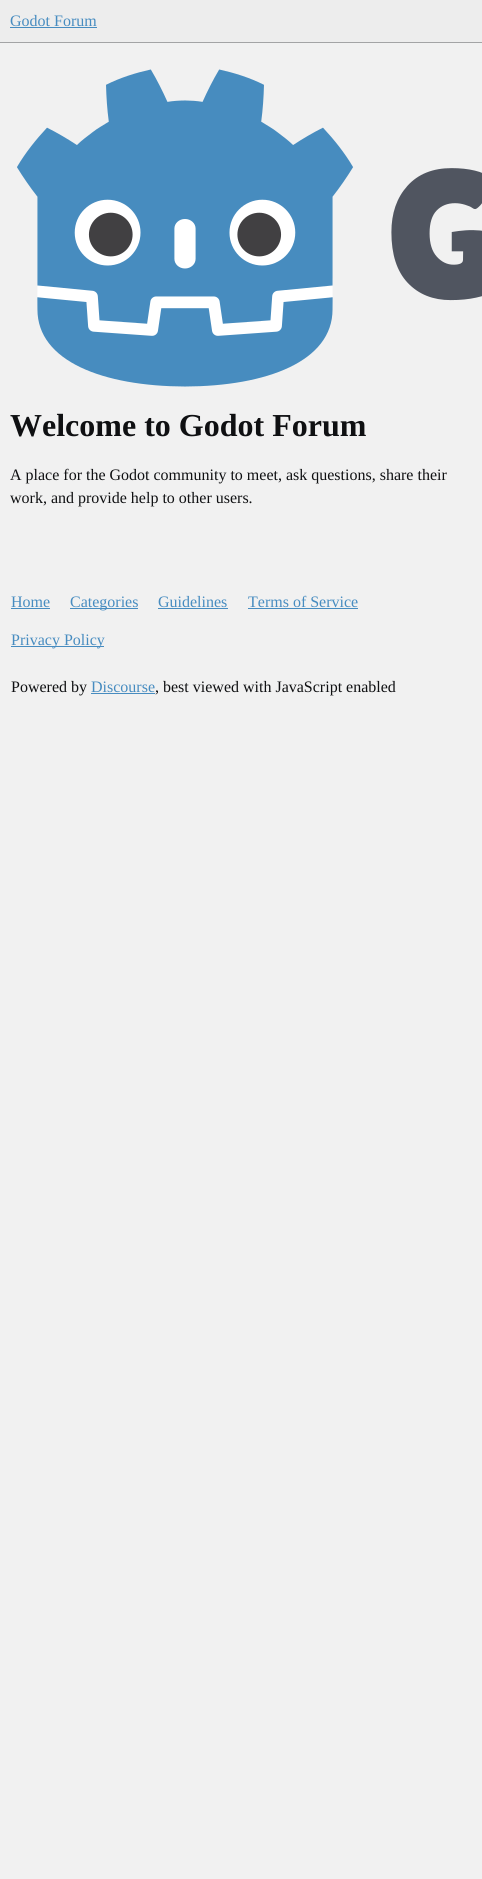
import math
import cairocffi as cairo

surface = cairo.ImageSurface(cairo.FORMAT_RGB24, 482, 1879)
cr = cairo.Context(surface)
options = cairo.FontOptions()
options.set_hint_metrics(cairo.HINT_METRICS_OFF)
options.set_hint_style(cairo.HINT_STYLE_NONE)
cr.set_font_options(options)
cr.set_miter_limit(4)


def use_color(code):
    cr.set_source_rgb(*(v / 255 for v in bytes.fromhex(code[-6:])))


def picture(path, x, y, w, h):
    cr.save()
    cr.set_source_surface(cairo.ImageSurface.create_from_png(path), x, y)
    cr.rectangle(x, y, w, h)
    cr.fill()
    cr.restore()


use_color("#f1f1f1")
cr.paint()
use_color("#ededed")
cr.rectangle(0, 0, 482, 42)
cr.fill()
use_color("#a3a4a5")
cr.rectangle(0, 42, 482, 1)
cr.fill()
cr.select_font_face("Liberation Serif")
cr.set_font_size(16)
use_color("#478cc0")
cr.move_to(10, 26)
cr.show_text("Godot Forum")
cr.rectangle(10, 27, 87, 1)
cr.fill()
picture("img1.png", 17, 69, 465, 318)
cr.select_font_face("Liberation Serif", cairo.FONT_SLANT_NORMAL, cairo.FONT_WEIGHT_BOLD)
cr.set_font_size(32)
use_color("#0f1012")
cr.move_to(10, 436)
cr.show_text("Welcome to Godot Forum")
cr.select_font_face("Liberation Serif")
cr.set_font_size(16)
cr.move_to(10, 480)
cr.show_text("A place for the Godot community to meet, ask questions, share their")
cr.move_to(10, 503)
cr.show_text("work, and provide help to other users.")
use_color("#478cc0")
cr.move_to(11, 607)
cr.show_text("Home")
cr.rectangle(11, 608, 39, 1)
cr.fill()
cr.rectangle(70, 608, 68, 1)
cr.fill()
cr.move_to(70, 607)
cr.show_text("Categories")
cr.move_to(158, 607)
cr.show_text("Guidelines")
cr.rectangle(158, 608, 70, 1)
cr.fill()
cr.move_to(248, 607)
cr.show_text("Terms of Service")
cr.rectangle(248, 608, 110, 1)
cr.fill()
cr.rectangle(11, 646, 93, 1)
cr.fill()
cr.move_to(11, 645)
cr.show_text("Privacy Policy")
use_color("#0f1012")
cr.move_to(11, 692)
cr.show_text("Powered by")
use_color("#478cc0")
cr.move_to(91, 692)
cr.show_text("Discourse")
cr.rectangle(91, 693, 64, 1)
cr.fill()
use_color("#0f1012")
cr.move_to(155, 692)
cr.show_text(", best viewed with JavaScript enabled")
surface.write_to_png("result.png")
